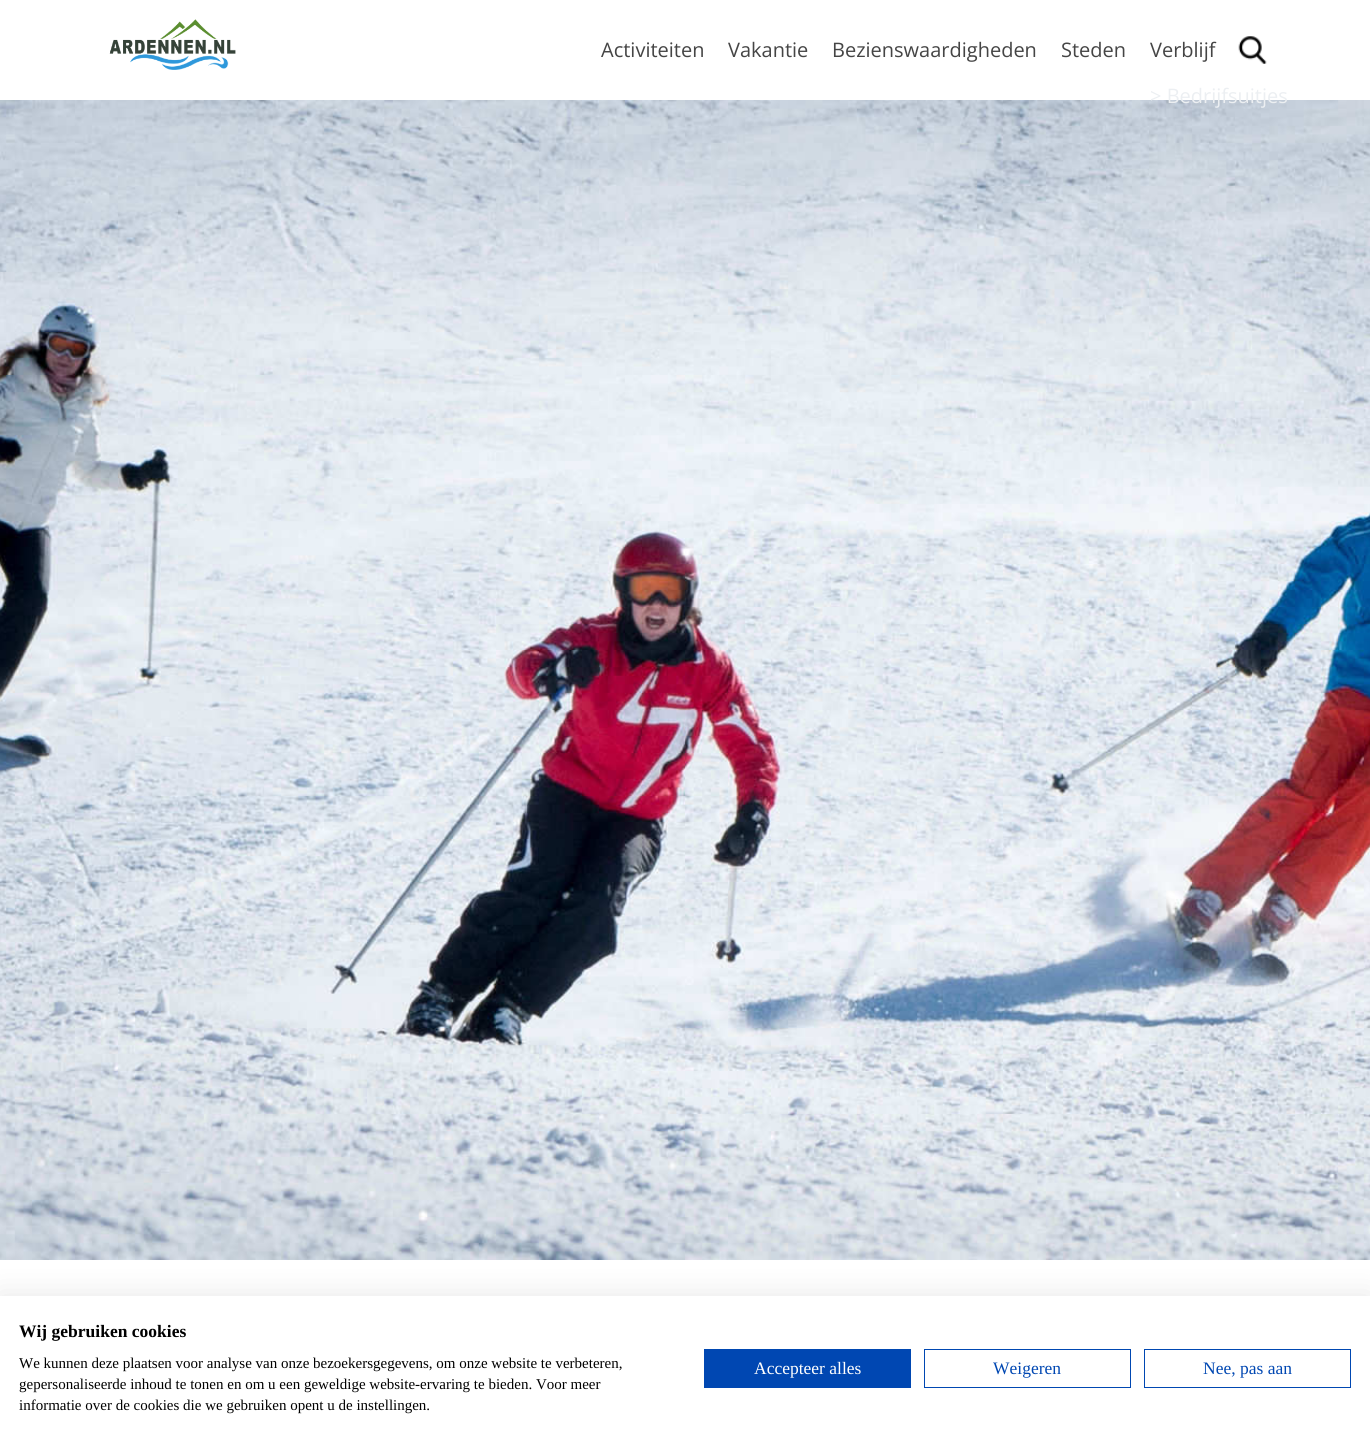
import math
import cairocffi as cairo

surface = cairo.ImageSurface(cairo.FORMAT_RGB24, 1370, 1450)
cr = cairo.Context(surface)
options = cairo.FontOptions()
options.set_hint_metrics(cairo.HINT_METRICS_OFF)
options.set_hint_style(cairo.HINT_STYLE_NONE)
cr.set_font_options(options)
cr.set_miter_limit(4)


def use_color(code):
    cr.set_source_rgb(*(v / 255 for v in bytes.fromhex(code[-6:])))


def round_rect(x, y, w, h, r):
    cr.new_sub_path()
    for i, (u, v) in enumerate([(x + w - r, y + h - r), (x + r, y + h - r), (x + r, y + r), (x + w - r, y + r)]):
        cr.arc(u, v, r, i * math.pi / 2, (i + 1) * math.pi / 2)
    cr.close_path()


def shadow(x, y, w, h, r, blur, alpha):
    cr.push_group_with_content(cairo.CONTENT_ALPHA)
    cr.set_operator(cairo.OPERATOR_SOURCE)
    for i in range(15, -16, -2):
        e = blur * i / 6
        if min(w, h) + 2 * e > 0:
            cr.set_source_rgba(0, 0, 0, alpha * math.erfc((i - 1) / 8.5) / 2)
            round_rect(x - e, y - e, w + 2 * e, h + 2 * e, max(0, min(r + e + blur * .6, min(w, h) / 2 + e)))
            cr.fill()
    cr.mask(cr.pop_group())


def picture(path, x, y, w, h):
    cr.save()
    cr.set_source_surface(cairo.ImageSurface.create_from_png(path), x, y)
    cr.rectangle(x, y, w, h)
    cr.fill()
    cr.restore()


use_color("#ffffff")
cr.paint()
picture("img1.png", 109, 19, 127, 51)
cr.select_font_face("Open Sans")
cr.set_font_size(20)
use_color("#454545")
cr.move_to(728, 57)
cr.show_text("Vakantie")
cr.move_to(832, 57)
cr.show_text("Bezienswaardigheden")
cr.move_to(1061, 57)
cr.show_text("Steden")
picture("img2.png", 1238, 36, 29, 28)
cr.move_to(601, 57)
cr.show_text("Activiteiten")
cr.move_to(1150, 57)
cr.show_text("Verblijf")
picture("img3.png", 0, 100, 1370, 1160)
use_color("#eceff2")
cr.move_to(1150, 103)
cr.show_text("> Bedrijfsuitjes")
use_color("#000000")
shadow(0, 1296, 1370, 154, 0, 15, 0.1)
use_color("#ffffff")
cr.rectangle(0, 1296, 1370, 154)
cr.fill()
cr.select_font_face("Liberation Serif", cairo.FONT_SLANT_NORMAL, cairo.FONT_WEIGHT_BOLD)
cr.set_font_size(17.5)
use_color("#000000")
cr.move_to(19, 1337)
cr.show_text("Wij gebruiken cookies")
cr.select_font_face("Liberation Serif")
cr.set_font_size(15)
cr.move_to(19, 1368)
cr.show_text("We kunnen deze plaatsen voor analyse van onze bezoekersgegevens, om onze website te verbeteren,")
cr.move_to(19, 1389)
cr.show_text("gepersonaliseerde inhoud te tonen en om u een geweldige website-ervaring te bieden. Voor meer")
cr.move_to(19, 1410)
cr.show_text("informatie over de cookies die we gebruiken opent u de instellingen.")
use_color("#0047b2")
cr.rectangle(704, 1349, 207, 39)
cr.fill()
cr.set_font_size(17.5)
use_color("#ffffff")
cr.move_to(754, 1374)
cr.show_text("Accepteer alles")
cr.rectangle(924.5, 1349.5, 206, 38)
use_color("#0047b2")
cr.set_line_width(1)
cr.stroke()
cr.move_to(993, 1374)
cr.show_text("Weigeren")
cr.rectangle(1144.5, 1349.5, 206, 38)
cr.stroke()
cr.move_to(1203, 1374)
cr.show_text("Nee, pas aan")
surface.write_to_png("result.png")
